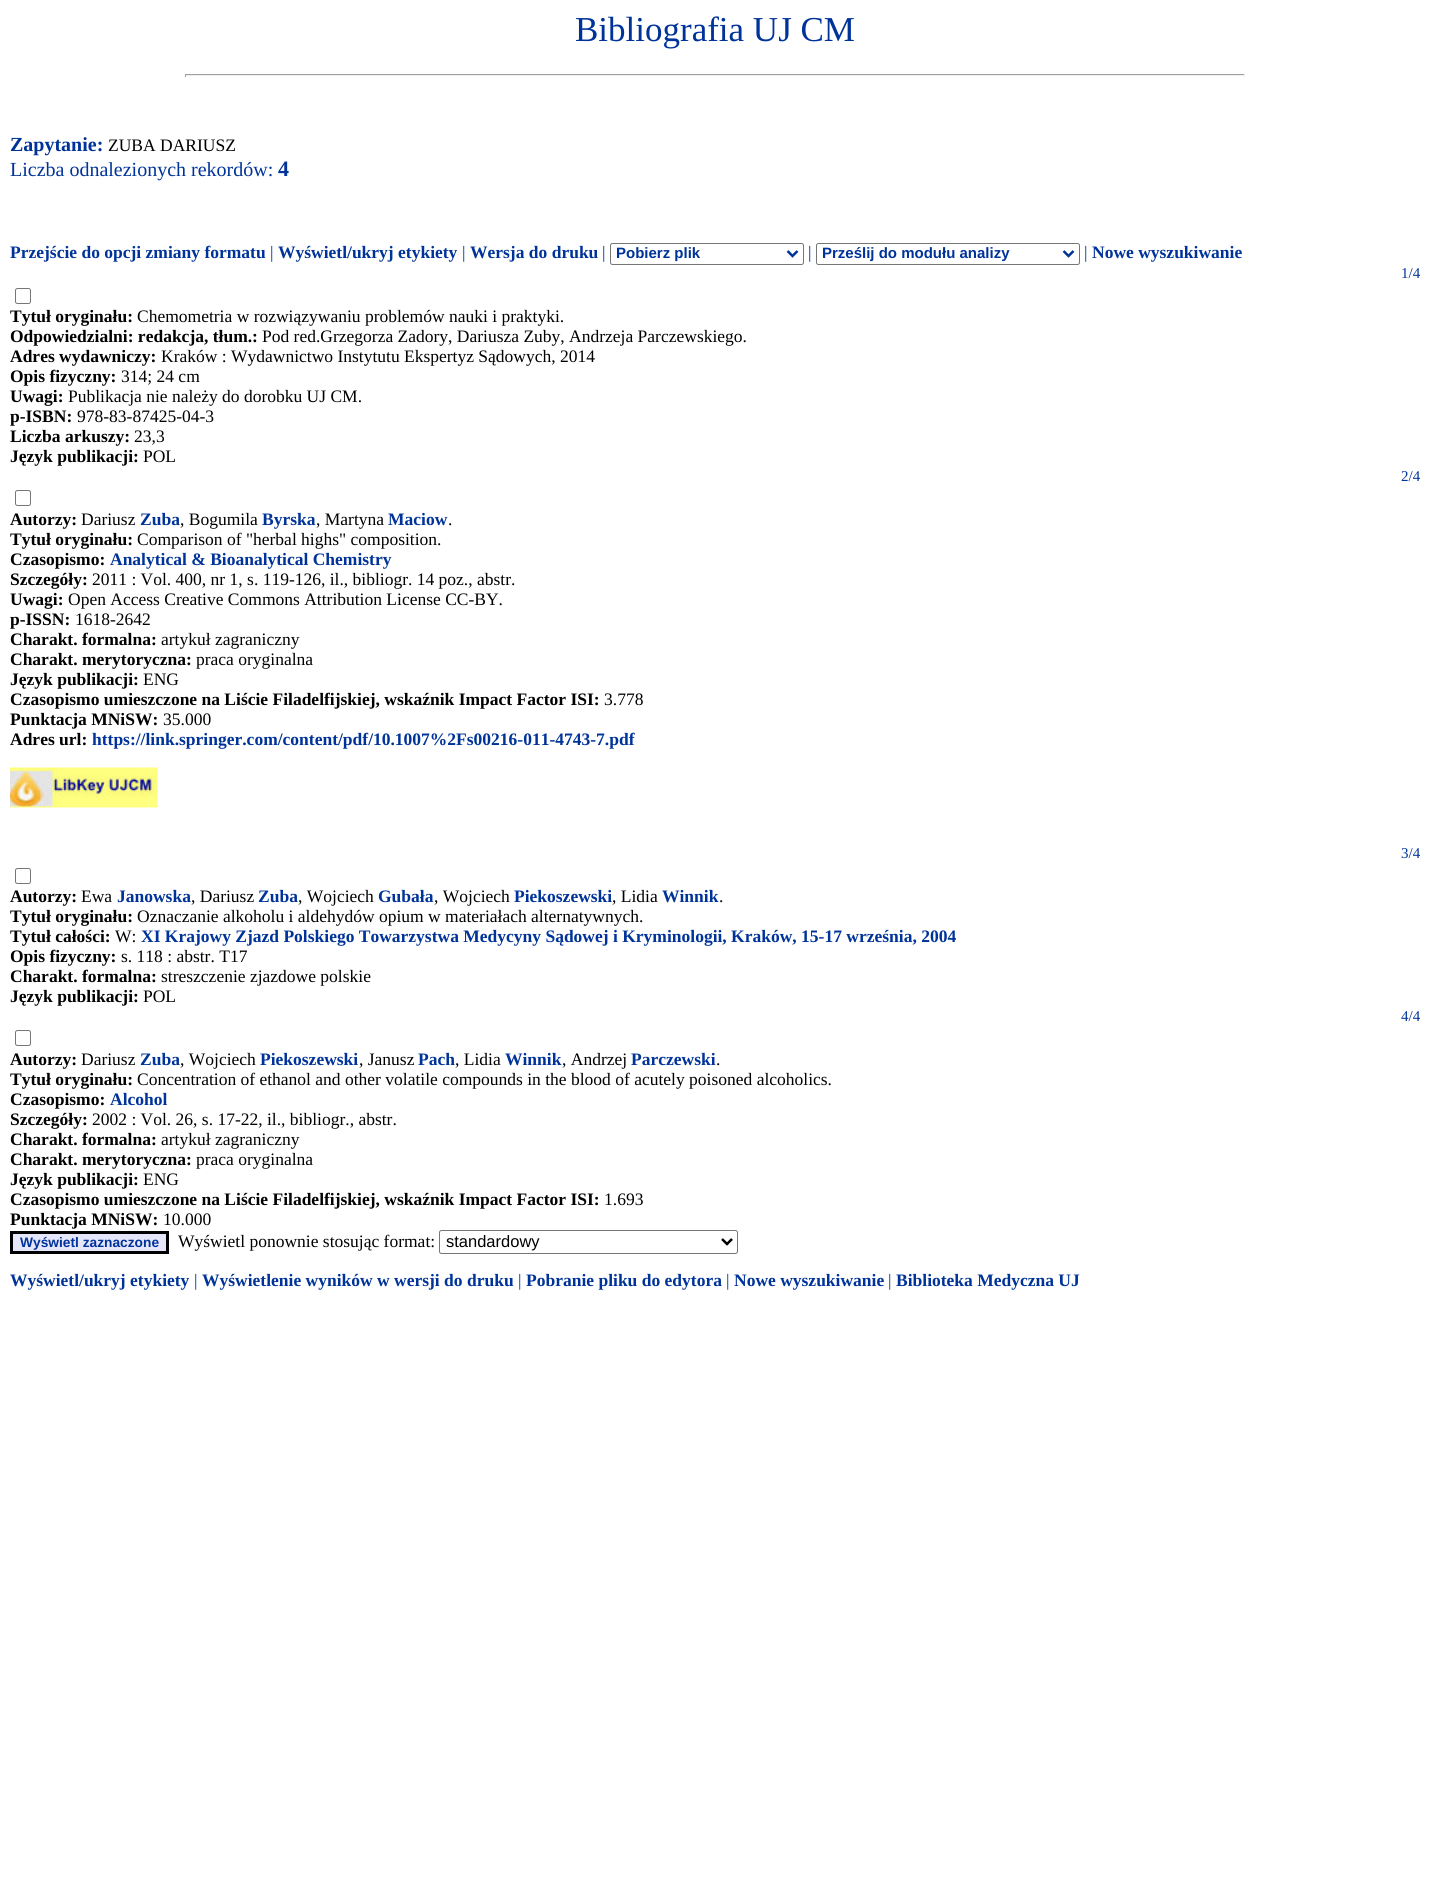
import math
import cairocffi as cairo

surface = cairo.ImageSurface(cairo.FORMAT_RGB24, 1430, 1890)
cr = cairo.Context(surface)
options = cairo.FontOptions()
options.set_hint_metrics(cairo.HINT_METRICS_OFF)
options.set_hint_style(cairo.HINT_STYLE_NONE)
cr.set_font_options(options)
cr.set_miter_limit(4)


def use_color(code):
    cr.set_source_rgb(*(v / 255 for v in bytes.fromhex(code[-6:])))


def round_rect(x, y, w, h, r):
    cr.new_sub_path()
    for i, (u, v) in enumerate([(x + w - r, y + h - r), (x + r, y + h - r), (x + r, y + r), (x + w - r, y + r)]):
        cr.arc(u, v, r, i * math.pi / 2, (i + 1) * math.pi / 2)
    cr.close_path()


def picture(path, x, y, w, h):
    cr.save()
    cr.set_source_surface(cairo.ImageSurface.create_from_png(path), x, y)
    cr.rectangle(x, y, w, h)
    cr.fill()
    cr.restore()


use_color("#ffffff")
cr.paint()
cr.select_font_face("Liberation Serif")
cr.set_font_size(35)
use_color("#003399")
cr.move_to(575, 41)
cr.show_text("Bibliografia UJ CM")
use_color("#9f9f9f")
cr.rectangle(185, 74, 1060, 1)
cr.fill()
use_color("#eeeeee")
cr.rectangle(1244, 74, 1, 3)
cr.fill()
cr.rectangle(185, 75, 1060, 1)
cr.fill()
use_color("#9f9f9f")
cr.rectangle(185, 74, 1, 3)
cr.fill()
cr.select_font_face("Liberation Serif", cairo.FONT_SLANT_NORMAL, cairo.FONT_WEIGHT_BOLD)
cr.set_font_size(20)
use_color("#003399")
cr.move_to(10, 151)
cr.show_text("Zapytanie:")
cr.select_font_face("Liberation Serif")
cr.set_font_size(17.5)
use_color("#000000")
cr.move_to(108, 151)
cr.show_text("ZUBA DARIUSZ")
cr.set_font_size(20)
use_color("#003399")
cr.move_to(10, 176)
cr.show_text("Liczba odnalezionych rekordów:")
cr.select_font_face("Liberation Serif", cairo.FONT_SLANT_NORMAL, cairo.FONT_WEIGHT_BOLD)
cr.set_font_size(22)
cr.move_to(278, 176)
cr.show_text("4")
cr.set_font_size(17.5)
cr.move_to(10, 258)
cr.show_text("Przejście do opcji zmiany formatu")
cr.select_font_face("Liberation Serif")
cr.move_to(270, 258)
cr.show_text("|")
cr.select_font_face("Liberation Serif", cairo.FONT_SLANT_NORMAL, cairo.FONT_WEIGHT_BOLD)
cr.move_to(278, 258)
cr.show_text("Wyświetl/ukryj etykiety")
cr.select_font_face("Liberation Serif")
cr.move_to(462, 258)
cr.show_text("|")
cr.select_font_face("Liberation Serif", cairo.FONT_SLANT_NORMAL, cairo.FONT_WEIGHT_BOLD)
cr.move_to(470, 258)
cr.show_text("Wersja do druku")
cr.select_font_face("Liberation Serif")
cr.move_to(602, 258)
cr.show_text("|")
round_rect(610.5, 243.5, 193, 21, 2)
use_color("#767676")
cr.set_line_width(1)
cr.stroke()
cr.new_path()
cr.move_to(787.5, 251)
cr.line_to(792.5, 256)
cr.line_to(797.5, 251)
use_color("#003399")
cr.set_line_width(2.5)
cr.stroke()
cr.select_font_face("Liberation Sans", cairo.FONT_SLANT_NORMAL, cairo.FONT_WEIGHT_BOLD)
cr.set_font_size(15)
cr.move_to(616, 258)
cr.show_text("Pobierz plik")
cr.select_font_face("Liberation Serif")
cr.set_font_size(17.5)
cr.move_to(808, 258)
cr.show_text("|")
round_rect(816.5, 243.5, 263, 21, 2)
use_color("#767676")
cr.set_line_width(1)
cr.stroke()
cr.new_path()
cr.move_to(1063.5, 251)
cr.line_to(1068.5, 256)
cr.line_to(1073.5, 251)
use_color("#003399")
cr.set_line_width(2.5)
cr.stroke()
cr.select_font_face("Liberation Sans", cairo.FONT_SLANT_NORMAL, cairo.FONT_WEIGHT_BOLD)
cr.set_font_size(15)
cr.move_to(822, 258)
cr.show_text("Prześlij do modułu analizy")
cr.select_font_face("Liberation Serif")
cr.set_font_size(17.5)
cr.move_to(1084, 258)
cr.show_text("|")
cr.select_font_face("Liberation Serif", cairo.FONT_SLANT_NORMAL, cairo.FONT_WEIGHT_BOLD)
cr.move_to(1092, 258)
cr.show_text("Nowe wyszukiwanie")
cr.select_font_face("Liberation Serif")
cr.set_font_size(15)
cr.move_to(1401, 278)
cr.show_text("1/4")
round_rect(15.5, 288.5, 15, 15, 2)
use_color("#767676")
cr.set_line_width(1)
cr.stroke()
cr.select_font_face("Liberation Serif", cairo.FONT_SLANT_NORMAL, cairo.FONT_WEIGHT_BOLD)
cr.set_font_size(17.5)
use_color("#000000")
cr.move_to(10, 322)
cr.show_text("Tytuł oryginału:")
cr.select_font_face("Liberation Serif")
cr.move_to(137, 322)
cr.show_text("Chemometria w rozwiązywaniu problemów nauki i praktyki.")
cr.select_font_face("Liberation Serif", cairo.FONT_SLANT_NORMAL, cairo.FONT_WEIGHT_BOLD)
cr.move_to(10, 342)
cr.show_text("Odpowiedzialni: redakcja, tłum.:")
cr.select_font_face("Liberation Serif")
cr.move_to(262, 342)
cr.show_text("Pod red.Grzegorza Zadory, Dariusza Zuby, Andrzeja Parczewskiego.")
cr.select_font_face("Liberation Serif", cairo.FONT_SLANT_NORMAL, cairo.FONT_WEIGHT_BOLD)
cr.move_to(10, 362)
cr.show_text("Adres wydawniczy:")
cr.select_font_face("Liberation Serif")
cr.move_to(161, 362)
cr.show_text("Kraków : Wydawnictwo Instytutu Ekspertyz Sądowych, 2014")
cr.select_font_face("Liberation Serif", cairo.FONT_SLANT_NORMAL, cairo.FONT_WEIGHT_BOLD)
cr.move_to(10, 382)
cr.show_text("Opis fizyczny:")
cr.select_font_face("Liberation Serif")
cr.move_to(121, 382)
cr.show_text("314; 24 cm")
cr.select_font_face("Liberation Serif", cairo.FONT_SLANT_NORMAL, cairo.FONT_WEIGHT_BOLD)
cr.move_to(10, 402)
cr.show_text("Uwagi:")
cr.select_font_face("Liberation Serif")
cr.move_to(68, 402)
cr.show_text("Publikacja nie należy do dorobku UJ CM.")
cr.select_font_face("Liberation Serif", cairo.FONT_SLANT_NORMAL, cairo.FONT_WEIGHT_BOLD)
cr.move_to(10, 422)
cr.show_text("p-ISBN:")
cr.select_font_face("Liberation Serif")
cr.move_to(77, 422)
cr.show_text("978-83-87425-04-3")
cr.select_font_face("Liberation Serif", cairo.FONT_SLANT_NORMAL, cairo.FONT_WEIGHT_BOLD)
cr.move_to(10, 442)
cr.show_text("Liczba arkuszy:")
cr.select_font_face("Liberation Serif")
cr.move_to(134, 442)
cr.show_text("23,3")
cr.select_font_face("Liberation Serif", cairo.FONT_SLANT_NORMAL, cairo.FONT_WEIGHT_BOLD)
cr.move_to(10, 462)
cr.show_text("Język publikacji:")
cr.select_font_face("Liberation Serif")
cr.move_to(143, 462)
cr.show_text("POL")
cr.set_font_size(15)
use_color("#003399")
cr.move_to(1401, 481)
cr.show_text("2/4")
round_rect(15.5, 490.5, 15, 15, 2)
use_color("#767676")
cr.stroke()
cr.select_font_face("Liberation Serif", cairo.FONT_SLANT_NORMAL, cairo.FONT_WEIGHT_BOLD)
cr.set_font_size(17.5)
use_color("#000000")
cr.move_to(10, 525)
cr.show_text("Autorzy:")
cr.select_font_face("Liberation Serif")
cr.move_to(81, 525)
cr.show_text("Dariusz")
cr.select_font_face("Liberation Serif", cairo.FONT_SLANT_NORMAL, cairo.FONT_WEIGHT_BOLD)
use_color("#003399")
cr.move_to(140, 525)
cr.show_text("Zuba")
cr.select_font_face("Liberation Serif")
use_color("#000000")
cr.move_to(180, 525)
cr.show_text(", Bogumila")
cr.select_font_face("Liberation Serif", cairo.FONT_SLANT_NORMAL, cairo.FONT_WEIGHT_BOLD)
use_color("#003399")
cr.move_to(262, 525)
cr.show_text("Byrska")
cr.select_font_face("Liberation Serif")
use_color("#000000")
cr.move_to(316, 525)
cr.show_text(", Martyna")
cr.select_font_face("Liberation Serif", cairo.FONT_SLANT_NORMAL, cairo.FONT_WEIGHT_BOLD)
use_color("#003399")
cr.move_to(388, 525)
cr.show_text("Maciow")
cr.select_font_face("Liberation Serif")
use_color("#000000")
cr.move_to(448, 525)
cr.show_text(".")
cr.select_font_face("Liberation Serif", cairo.FONT_SLANT_NORMAL, cairo.FONT_WEIGHT_BOLD)
cr.move_to(10, 545)
cr.show_text("Tytuł oryginału:")
cr.select_font_face("Liberation Serif")
cr.move_to(137, 545)
cr.show_text("Comparison of \"herbal highs\" composition.")
cr.select_font_face("Liberation Serif", cairo.FONT_SLANT_NORMAL, cairo.FONT_WEIGHT_BOLD)
cr.move_to(10, 565)
cr.show_text("Czasopismo:")
use_color("#003399")
cr.move_to(110, 565)
cr.show_text("Analytical & Bioanalytical Chemistry")
use_color("#000000")
cr.move_to(10, 585)
cr.show_text("Szczegóły:")
cr.select_font_face("Liberation Serif")
cr.move_to(92, 585)
cr.show_text("2011 : Vol. 400, nr 1, s. 119-126, il., bibliogr. 14 poz., abstr.")
cr.select_font_face("Liberation Serif", cairo.FONT_SLANT_NORMAL, cairo.FONT_WEIGHT_BOLD)
cr.move_to(10, 605)
cr.show_text("Uwagi:")
cr.select_font_face("Liberation Serif")
cr.move_to(68, 605)
cr.show_text("Open Access Creative Commons Attribution License CC-BY.")
cr.select_font_face("Liberation Serif", cairo.FONT_SLANT_NORMAL, cairo.FONT_WEIGHT_BOLD)
cr.move_to(10, 625)
cr.show_text("p-ISSN:")
cr.select_font_face("Liberation Serif")
cr.move_to(75, 625)
cr.show_text("1618-2642")
cr.select_font_face("Liberation Serif", cairo.FONT_SLANT_NORMAL, cairo.FONT_WEIGHT_BOLD)
cr.move_to(10, 645)
cr.show_text("Charakt. formalna:")
cr.select_font_face("Liberation Serif")
cr.move_to(161, 645)
cr.show_text("artykuł zagraniczny")
cr.select_font_face("Liberation Serif", cairo.FONT_SLANT_NORMAL, cairo.FONT_WEIGHT_BOLD)
cr.move_to(10, 665)
cr.show_text("Charakt. merytoryczna:")
cr.select_font_face("Liberation Serif")
cr.move_to(196, 665)
cr.show_text("praca oryginalna")
cr.select_font_face("Liberation Serif", cairo.FONT_SLANT_NORMAL, cairo.FONT_WEIGHT_BOLD)
cr.move_to(10, 685)
cr.show_text("Język publikacji:")
cr.select_font_face("Liberation Serif")
cr.move_to(143, 685)
cr.show_text("ENG")
cr.select_font_face("Liberation Serif", cairo.FONT_SLANT_NORMAL, cairo.FONT_WEIGHT_BOLD)
cr.move_to(10, 705)
cr.show_text("Czasopismo umieszczone na Liście Filadelfijskiej, wskaźnik Impact Factor ISI:")
cr.select_font_face("Liberation Serif")
cr.move_to(604, 705)
cr.show_text("3.778")
cr.select_font_face("Liberation Serif", cairo.FONT_SLANT_NORMAL, cairo.FONT_WEIGHT_BOLD)
cr.move_to(10, 725)
cr.show_text("Punktacja MNiSW:")
cr.select_font_face("Liberation Serif")
cr.move_to(163, 725)
cr.show_text("35.000")
cr.select_font_face("Liberation Serif", cairo.FONT_SLANT_NORMAL, cairo.FONT_WEIGHT_BOLD)
cr.move_to(10, 745)
cr.show_text("Adres url:")
use_color("#003399")
cr.move_to(92, 745)
cr.show_text("https://link.springer.com/content/pdf/10.1007%2Fs00216-011-4743-7.pdf")
picture("img1.png", 10, 767, 148, 41)
cr.select_font_face("Liberation Serif")
cr.set_font_size(15)
cr.move_to(1401, 858)
cr.show_text("3/4")
round_rect(15.5, 868.5, 15, 15, 2)
use_color("#767676")
cr.stroke()
cr.select_font_face("Liberation Serif", cairo.FONT_SLANT_NORMAL, cairo.FONT_WEIGHT_BOLD)
cr.set_font_size(17.5)
use_color("#000000")
cr.move_to(10, 902)
cr.show_text("Autorzy:")
cr.select_font_face("Liberation Serif")
cr.move_to(81, 902)
cr.show_text("Ewa")
cr.select_font_face("Liberation Serif", cairo.FONT_SLANT_NORMAL, cairo.FONT_WEIGHT_BOLD)
use_color("#003399")
cr.move_to(117, 902)
cr.show_text("Janowska")
cr.select_font_face("Liberation Serif")
use_color("#000000")
cr.move_to(191, 902)
cr.show_text(", Dariusz")
cr.select_font_face("Liberation Serif", cairo.FONT_SLANT_NORMAL, cairo.FONT_WEIGHT_BOLD)
use_color("#003399")
cr.move_to(258, 902)
cr.show_text("Zuba")
cr.select_font_face("Liberation Serif")
use_color("#000000")
cr.move_to(298, 902)
cr.show_text(", Wojciech")
cr.select_font_face("Liberation Serif", cairo.FONT_SLANT_NORMAL, cairo.FONT_WEIGHT_BOLD)
use_color("#003399")
cr.move_to(378, 902)
cr.show_text("Gubała")
cr.select_font_face("Liberation Serif")
use_color("#000000")
cr.move_to(434, 902)
cr.show_text(", Wojciech")
cr.select_font_face("Liberation Serif", cairo.FONT_SLANT_NORMAL, cairo.FONT_WEIGHT_BOLD)
use_color("#003399")
cr.move_to(514, 902)
cr.show_text("Piekoszewski")
cr.select_font_face("Liberation Serif")
use_color("#000000")
cr.move_to(612, 902)
cr.show_text(", Lidia")
cr.select_font_face("Liberation Serif", cairo.FONT_SLANT_NORMAL, cairo.FONT_WEIGHT_BOLD)
use_color("#003399")
cr.move_to(662, 902)
cr.show_text("Winnik")
cr.select_font_face("Liberation Serif")
use_color("#000000")
cr.move_to(719, 902)
cr.show_text(".")
cr.select_font_face("Liberation Serif", cairo.FONT_SLANT_NORMAL, cairo.FONT_WEIGHT_BOLD)
cr.move_to(10, 922)
cr.show_text("Tytuł oryginału:")
cr.select_font_face("Liberation Serif")
cr.move_to(137, 922)
cr.show_text("Oznaczanie alkoholu i aldehydów opium w materiałach alternatywnych.")
cr.select_font_face("Liberation Serif", cairo.FONT_SLANT_NORMAL, cairo.FONT_WEIGHT_BOLD)
cr.move_to(10, 942)
cr.show_text("Tytuł całości:")
cr.select_font_face("Liberation Serif")
cr.move_to(115, 942)
cr.show_text("W:")
cr.select_font_face("Liberation Serif", cairo.FONT_SLANT_NORMAL, cairo.FONT_WEIGHT_BOLD)
use_color("#003399")
cr.move_to(141, 942)
cr.show_text("XI Krajowy Zjazd Polskiego Towarzystwa Medycyny Sądowej i Kryminologii, Kraków, 15-17 września, 2004")
use_color("#000000")
cr.move_to(10, 962)
cr.show_text("Opis fizyczny:")
cr.select_font_face("Liberation Serif")
cr.move_to(121, 962)
cr.show_text("s. 118 : abstr. T17")
cr.select_font_face("Liberation Serif", cairo.FONT_SLANT_NORMAL, cairo.FONT_WEIGHT_BOLD)
cr.move_to(10, 982)
cr.show_text("Charakt. formalna:")
cr.select_font_face("Liberation Serif")
cr.move_to(161, 982)
cr.show_text("streszczenie zjazdowe polskie")
cr.select_font_face("Liberation Serif", cairo.FONT_SLANT_NORMAL, cairo.FONT_WEIGHT_BOLD)
cr.move_to(10, 1002)
cr.show_text("Język publikacji:")
cr.select_font_face("Liberation Serif")
cr.move_to(143, 1002)
cr.show_text("POL")
cr.set_font_size(15)
use_color("#003399")
cr.move_to(1401, 1021)
cr.show_text("4/4")
round_rect(15.5, 1030.5, 15, 15, 2)
use_color("#767676")
cr.stroke()
cr.select_font_face("Liberation Serif", cairo.FONT_SLANT_NORMAL, cairo.FONT_WEIGHT_BOLD)
cr.set_font_size(17.5)
use_color("#000000")
cr.move_to(10, 1065)
cr.show_text("Autorzy:")
cr.select_font_face("Liberation Serif")
cr.move_to(81, 1065)
cr.show_text("Dariusz")
cr.select_font_face("Liberation Serif", cairo.FONT_SLANT_NORMAL, cairo.FONT_WEIGHT_BOLD)
use_color("#003399")
cr.move_to(140, 1065)
cr.show_text("Zuba")
cr.select_font_face("Liberation Serif")
use_color("#000000")
cr.move_to(180, 1065)
cr.show_text(", Wojciech")
cr.select_font_face("Liberation Serif", cairo.FONT_SLANT_NORMAL, cairo.FONT_WEIGHT_BOLD)
use_color("#003399")
cr.move_to(260, 1065)
cr.show_text("Piekoszewski")
cr.select_font_face("Liberation Serif")
use_color("#000000")
cr.move_to(359, 1065)
cr.show_text(", Janusz")
cr.select_font_face("Liberation Serif", cairo.FONT_SLANT_NORMAL, cairo.FONT_WEIGHT_BOLD)
use_color("#003399")
cr.move_to(418, 1065)
cr.show_text("Pach")
cr.select_font_face("Liberation Serif")
use_color("#000000")
cr.move_to(455, 1065)
cr.show_text(", Lidia")
cr.select_font_face("Liberation Serif", cairo.FONT_SLANT_NORMAL, cairo.FONT_WEIGHT_BOLD)
use_color("#003399")
cr.move_to(505, 1065)
cr.show_text("Winnik")
cr.select_font_face("Liberation Serif")
use_color("#000000")
cr.move_to(562, 1065)
cr.show_text(", Andrzej")
cr.select_font_face("Liberation Serif", cairo.FONT_SLANT_NORMAL, cairo.FONT_WEIGHT_BOLD)
use_color("#003399")
cr.move_to(631, 1065)
cr.show_text("Parczewski")
cr.select_font_face("Liberation Serif")
use_color("#000000")
cr.move_to(716, 1065)
cr.show_text(".")
cr.select_font_face("Liberation Serif", cairo.FONT_SLANT_NORMAL, cairo.FONT_WEIGHT_BOLD)
cr.move_to(10, 1085)
cr.show_text("Tytuł oryginału:")
cr.select_font_face("Liberation Serif")
cr.move_to(137, 1085)
cr.show_text("Concentration of ethanol and other volatile compounds in the blood of acutely poisoned alcoholics.")
cr.select_font_face("Liberation Serif", cairo.FONT_SLANT_NORMAL, cairo.FONT_WEIGHT_BOLD)
cr.move_to(10, 1105)
cr.show_text("Czasopismo:")
use_color("#003399")
cr.move_to(110, 1105)
cr.show_text("Alcohol")
use_color("#000000")
cr.move_to(10, 1125)
cr.show_text("Szczegóły:")
cr.select_font_face("Liberation Serif")
cr.move_to(92, 1125)
cr.show_text("2002 : Vol. 26, s. 17-22, il., bibliogr., abstr.")
cr.select_font_face("Liberation Serif", cairo.FONT_SLANT_NORMAL, cairo.FONT_WEIGHT_BOLD)
cr.move_to(10, 1145)
cr.show_text("Charakt. formalna:")
cr.select_font_face("Liberation Serif")
cr.move_to(161, 1145)
cr.show_text("artykuł zagraniczny")
cr.select_font_face("Liberation Serif", cairo.FONT_SLANT_NORMAL, cairo.FONT_WEIGHT_BOLD)
cr.move_to(10, 1165)
cr.show_text("Charakt. merytoryczna:")
cr.select_font_face("Liberation Serif")
cr.move_to(196, 1165)
cr.show_text("praca oryginalna")
cr.select_font_face("Liberation Serif", cairo.FONT_SLANT_NORMAL, cairo.FONT_WEIGHT_BOLD)
cr.move_to(10, 1185)
cr.show_text("Język publikacji:")
cr.select_font_face("Liberation Serif")
cr.move_to(143, 1185)
cr.show_text("ENG")
cr.select_font_face("Liberation Serif", cairo.FONT_SLANT_NORMAL, cairo.FONT_WEIGHT_BOLD)
cr.move_to(10, 1205)
cr.show_text("Czasopismo umieszczone na Liście Filadelfijskiej, wskaźnik Impact Factor ISI:")
cr.select_font_face("Liberation Serif")
cr.move_to(604, 1205)
cr.show_text("1.693")
cr.select_font_face("Liberation Serif", cairo.FONT_SLANT_NORMAL, cairo.FONT_WEIGHT_BOLD)
cr.move_to(10, 1225)
cr.show_text("Punktacja MNiSW:")
cr.select_font_face("Liberation Serif")
cr.move_to(163, 1225)
cr.show_text("10.000")
use_color("#e6e6fa")
cr.rectangle(11.5, 1232.5, 156, 20)
cr.fill_preserve()
use_color("#000000")
cr.set_line_width(3)
cr.stroke()
cr.select_font_face("Liberation Sans", cairo.FONT_SLANT_NORMAL, cairo.FONT_WEIGHT_BOLD)
cr.set_font_size(13.75)
use_color("#003399")
cr.move_to(20, 1247)
cr.show_text("Wyświetl zaznaczone")
cr.select_font_face("Liberation Serif")
cr.set_font_size(17.5)
use_color("#000000")
cr.move_to(178, 1247)
cr.show_text("Wyświetl ponownie stosując format:")
round_rect(439.5, 1230.5, 298, 23, 2)
use_color("#767676")
cr.set_line_width(1)
cr.stroke()
cr.new_path()
cr.move_to(722, 1239)
cr.line_to(727, 1244)
cr.line_to(732, 1239)
use_color("#000000")
cr.set_line_width(2.5)
cr.stroke()
cr.select_font_face("Liberation Sans")
cr.set_font_size(16.5)
cr.move_to(446, 1247)
cr.show_text("standardowy")
cr.select_font_face("Liberation Serif", cairo.FONT_SLANT_NORMAL, cairo.FONT_WEIGHT_BOLD)
cr.set_font_size(17.5)
use_color("#003399")
cr.move_to(10, 1286)
cr.show_text("Wyświetl/ukryj etykiety")
cr.select_font_face("Liberation Serif")
cr.move_to(194, 1286)
cr.show_text("|")
cr.select_font_face("Liberation Serif", cairo.FONT_SLANT_NORMAL, cairo.FONT_WEIGHT_BOLD)
cr.move_to(202, 1286)
cr.show_text("Wyświetlenie wyników w wersji do druku")
cr.select_font_face("Liberation Serif")
cr.move_to(518, 1286)
cr.show_text("|")
cr.select_font_face("Liberation Serif", cairo.FONT_SLANT_NORMAL, cairo.FONT_WEIGHT_BOLD)
cr.move_to(526, 1286)
cr.show_text("Pobranie pliku do edytora")
cr.select_font_face("Liberation Serif")
cr.move_to(726, 1286)
cr.show_text("|")
cr.select_font_face("Liberation Serif", cairo.FONT_SLANT_NORMAL, cairo.FONT_WEIGHT_BOLD)
cr.move_to(734, 1286)
cr.show_text("Nowe wyszukiwanie")
cr.select_font_face("Liberation Serif")
cr.move_to(888, 1286)
cr.show_text("|")
cr.select_font_face("Liberation Serif", cairo.FONT_SLANT_NORMAL, cairo.FONT_WEIGHT_BOLD)
cr.move_to(896, 1286)
cr.show_text("Biblioteka Medyczna UJ")
surface.write_to_png("result.png")
